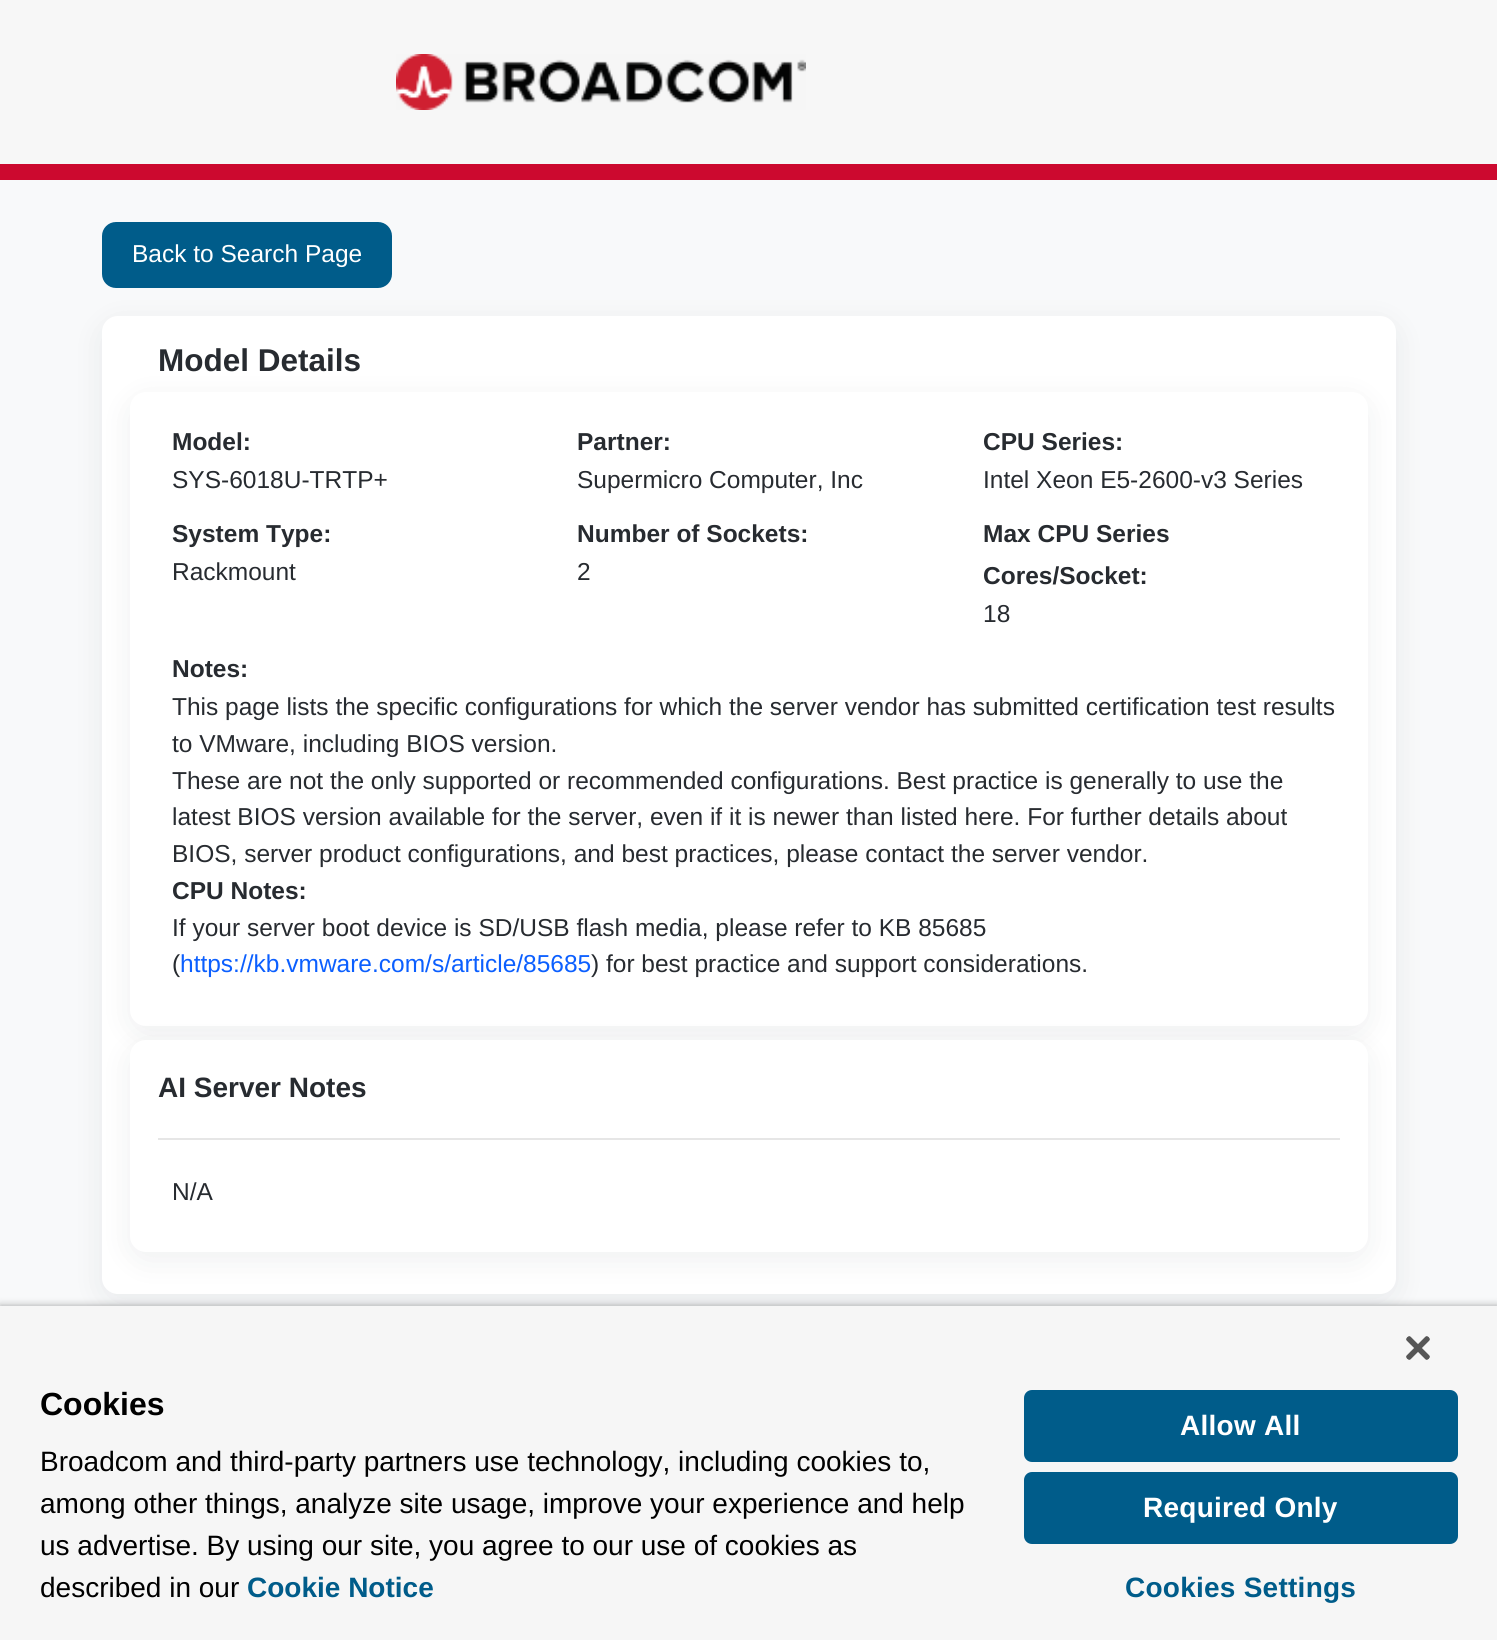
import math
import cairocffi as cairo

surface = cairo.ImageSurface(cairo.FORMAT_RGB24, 1497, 1640)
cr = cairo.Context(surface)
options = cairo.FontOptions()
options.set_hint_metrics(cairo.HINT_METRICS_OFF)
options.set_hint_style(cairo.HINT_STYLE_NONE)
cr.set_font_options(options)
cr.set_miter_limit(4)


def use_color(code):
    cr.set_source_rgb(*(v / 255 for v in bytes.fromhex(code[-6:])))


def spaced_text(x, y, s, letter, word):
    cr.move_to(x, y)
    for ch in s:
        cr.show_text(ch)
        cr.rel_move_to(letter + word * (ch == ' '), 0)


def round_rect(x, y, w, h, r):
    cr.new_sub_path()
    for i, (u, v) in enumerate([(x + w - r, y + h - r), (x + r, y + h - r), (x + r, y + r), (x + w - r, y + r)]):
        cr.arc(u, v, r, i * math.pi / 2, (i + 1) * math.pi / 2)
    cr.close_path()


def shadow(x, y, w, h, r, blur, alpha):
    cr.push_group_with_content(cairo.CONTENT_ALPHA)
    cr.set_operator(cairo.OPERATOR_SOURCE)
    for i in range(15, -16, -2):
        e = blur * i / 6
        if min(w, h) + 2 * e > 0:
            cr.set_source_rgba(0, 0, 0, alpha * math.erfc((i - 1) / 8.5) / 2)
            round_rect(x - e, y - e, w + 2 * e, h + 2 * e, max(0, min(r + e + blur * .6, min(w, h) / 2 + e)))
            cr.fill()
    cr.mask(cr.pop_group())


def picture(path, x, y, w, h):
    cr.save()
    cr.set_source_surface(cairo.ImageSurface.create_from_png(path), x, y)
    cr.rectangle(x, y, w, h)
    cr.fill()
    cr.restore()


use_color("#f8f9fa")
cr.paint()
use_color("#f7f7f7")
cr.rectangle(0, 0, 1497, 164)
cr.fill()
use_color("#cc092f")
cr.rectangle(0, 164, 1497, 16)
cr.fill()
picture("img1.png", 396, 54, 410, 56)
use_color("#005c8a")
round_rect(103, 223, 288, 64, 13)
cr.fill_preserve()
cr.stroke()
cr.select_font_face("Liberation Sans")
cr.set_font_size(24.5)
use_color("#ffffff")
cr.move_to(132, 262)
cr.show_text("Back to Search Page")
use_color("#333840")
shadow(102, 324, 1294, 978, 16, 16, 0.08)
use_color("#ffffff")
round_rect(102, 316, 1294, 978, 16)
cr.fill()
cr.select_font_face("Liberation Sans", cairo.FONT_SLANT_NORMAL, cairo.FONT_WEIGHT_BOLD)
cr.set_font_size(31.5)
use_color("#272b30")
cr.move_to(158, 371)
cr.show_text("Model Details")
use_color("#333840")
shadow(130, 400, 1238, 634, 16, 16, 0.08)
use_color("#ffffff")
round_rect(130, 392, 1238, 634, 16)
cr.fill()
cr.set_font_size(24.5)
use_color("#272b30")
cr.move_to(172, 450)
cr.show_text("Model:")
cr.select_font_face("Liberation Sans")
cr.move_to(172, 488)
cr.show_text("SYS-6018U-TRTP+")
cr.select_font_face("Liberation Sans", cairo.FONT_SLANT_NORMAL, cairo.FONT_WEIGHT_BOLD)
cr.move_to(577, 450)
cr.show_text("Partner:")
cr.select_font_face("Liberation Sans")
cr.move_to(577, 488)
cr.show_text("Supermicro Computer, Inc")
cr.select_font_face("Liberation Sans", cairo.FONT_SLANT_NORMAL, cairo.FONT_WEIGHT_BOLD)
cr.move_to(983, 450)
cr.show_text("CPU Series:")
cr.select_font_face("Liberation Sans")
cr.move_to(983, 488)
cr.show_text("Intel Xeon E5-2600-v3 Series")
cr.select_font_face("Liberation Sans", cairo.FONT_SLANT_NORMAL, cairo.FONT_WEIGHT_BOLD)
cr.move_to(172, 542)
cr.show_text("System Type:")
cr.select_font_face("Liberation Sans")
cr.move_to(172, 580)
cr.show_text("Rackmount")
cr.select_font_face("Liberation Sans", cairo.FONT_SLANT_NORMAL, cairo.FONT_WEIGHT_BOLD)
cr.move_to(577, 542)
cr.show_text("Number of Sockets:")
cr.select_font_face("Liberation Sans")
cr.move_to(577, 580)
cr.show_text("2")
cr.select_font_face("Liberation Sans", cairo.FONT_SLANT_NORMAL, cairo.FONT_WEIGHT_BOLD)
cr.move_to(983, 542)
cr.show_text("Max CPU Series")
cr.move_to(983, 584)
cr.show_text("Cores/Socket:")
cr.select_font_face("Liberation Sans")
cr.move_to(983, 622)
cr.show_text("18")
cr.select_font_face("Liberation Sans", cairo.FONT_SLANT_NORMAL, cairo.FONT_WEIGHT_BOLD)
cr.move_to(172, 677)
cr.show_text("Notes:")
cr.select_font_face("Liberation Sans")
cr.move_to(172, 715)
cr.show_text("This page lists the specific configurations for which the server vendor has submitted certification test results")
cr.move_to(172, 752)
cr.show_text("to VMware, including BIOS version.")
cr.move_to(172, 789)
cr.show_text("These are not the only supported or recommended configurations. Best practice is generally to use the")
cr.move_to(172, 825)
cr.show_text("latest BIOS version available for the server, even if it is newer than listed here. For further details about")
cr.move_to(172, 862)
cr.show_text("BIOS, server product configurations, and best practices, please contact the server vendor.")
cr.select_font_face("Liberation Sans", cairo.FONT_SLANT_NORMAL, cairo.FONT_WEIGHT_BOLD)
cr.move_to(172, 899)
cr.show_text("CPU Notes:")
cr.select_font_face("Liberation Sans")
cr.move_to(172, 936)
cr.show_text("If your server boot device is SD/USB flash media, please refer to KB 85685")
cr.move_to(172, 972)
cr.show_text("(")
use_color("#0b5fff")
cr.move_to(180, 972)
cr.show_text("https://kb.vmware.com/s/article/85685")
use_color("#272b30")
cr.move_to(591, 972)
cr.show_text(") for best practice and support considerations.")
use_color("#333840")
shadow(130, 1048, 1238, 212, 16, 16, 0.08)
use_color("#ffffff")
round_rect(130, 1040, 1238, 212, 16)
cr.fill()
cr.select_font_face("Liberation Sans", cairo.FONT_SLANT_NORMAL, cairo.FONT_WEIGHT_BOLD)
cr.set_font_size(28)
use_color("#272b30")
cr.move_to(158, 1097)
cr.show_text("AI Server Notes")
use_color("#e6e6e6")
cr.rectangle(158, 1138, 1182, 2)
cr.fill()
cr.select_font_face("Liberation Sans")
cr.set_font_size(24.5)
use_color("#272b30")
cr.move_to(172, 1200)
cr.show_text("N/A")
use_color("#000000")
shadow(0, 1306, 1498, 334, 0, 4, 0.35)
use_color("#f6f6f6")
cr.rectangle(0, 1306, 1497, 334)
cr.fill()
picture("img2.png", 1406, 1336, 24, 24)
cr.select_font_face("Liberation Sans", cairo.FONT_SLANT_NORMAL, cairo.FONT_WEIGHT_BOLD)
cr.set_font_size(32)
use_color("#000000")
cr.move_to(40, 1415)
cr.show_text("Cookies")
cr.select_font_face("Liberation Sans")
cr.set_font_size(28)
cr.move_to(40, 1471)
cr.show_text("Broadcom and third-party partners use technology, including cookies to,")
cr.move_to(40, 1513)
cr.show_text("among other things, analyze site usage, improve your experience and help")
cr.move_to(40, 1555)
cr.show_text("us advertise. By using our site, you agree to our use of cookies as")
cr.move_to(40, 1597)
cr.show_text("described in our")
cr.select_font_face("Liberation Sans", cairo.FONT_SLANT_NORMAL, cairo.FONT_WEIGHT_BOLD)
use_color("#005c8a")
cr.move_to(247, 1597)
cr.show_text("Cookie Notice")
round_rect(1025, 1391, 432, 70, 7)
cr.fill_preserve()
cr.stroke()
use_color("#ffffff")
spaced_text(1180, 1435, "Allow All", 0.25, 0)
use_color("#005c8a")
round_rect(1025, 1473, 432, 70, 7)
cr.fill_preserve()
cr.stroke()
use_color("#ffffff")
spaced_text(1143, 1517, "Required Only", 0.25, 0)
use_color("#005c8a")
spaced_text(1125, 1597, "Cookies Settings", 0.25, 0)
surface.write_to_png("result.png")
